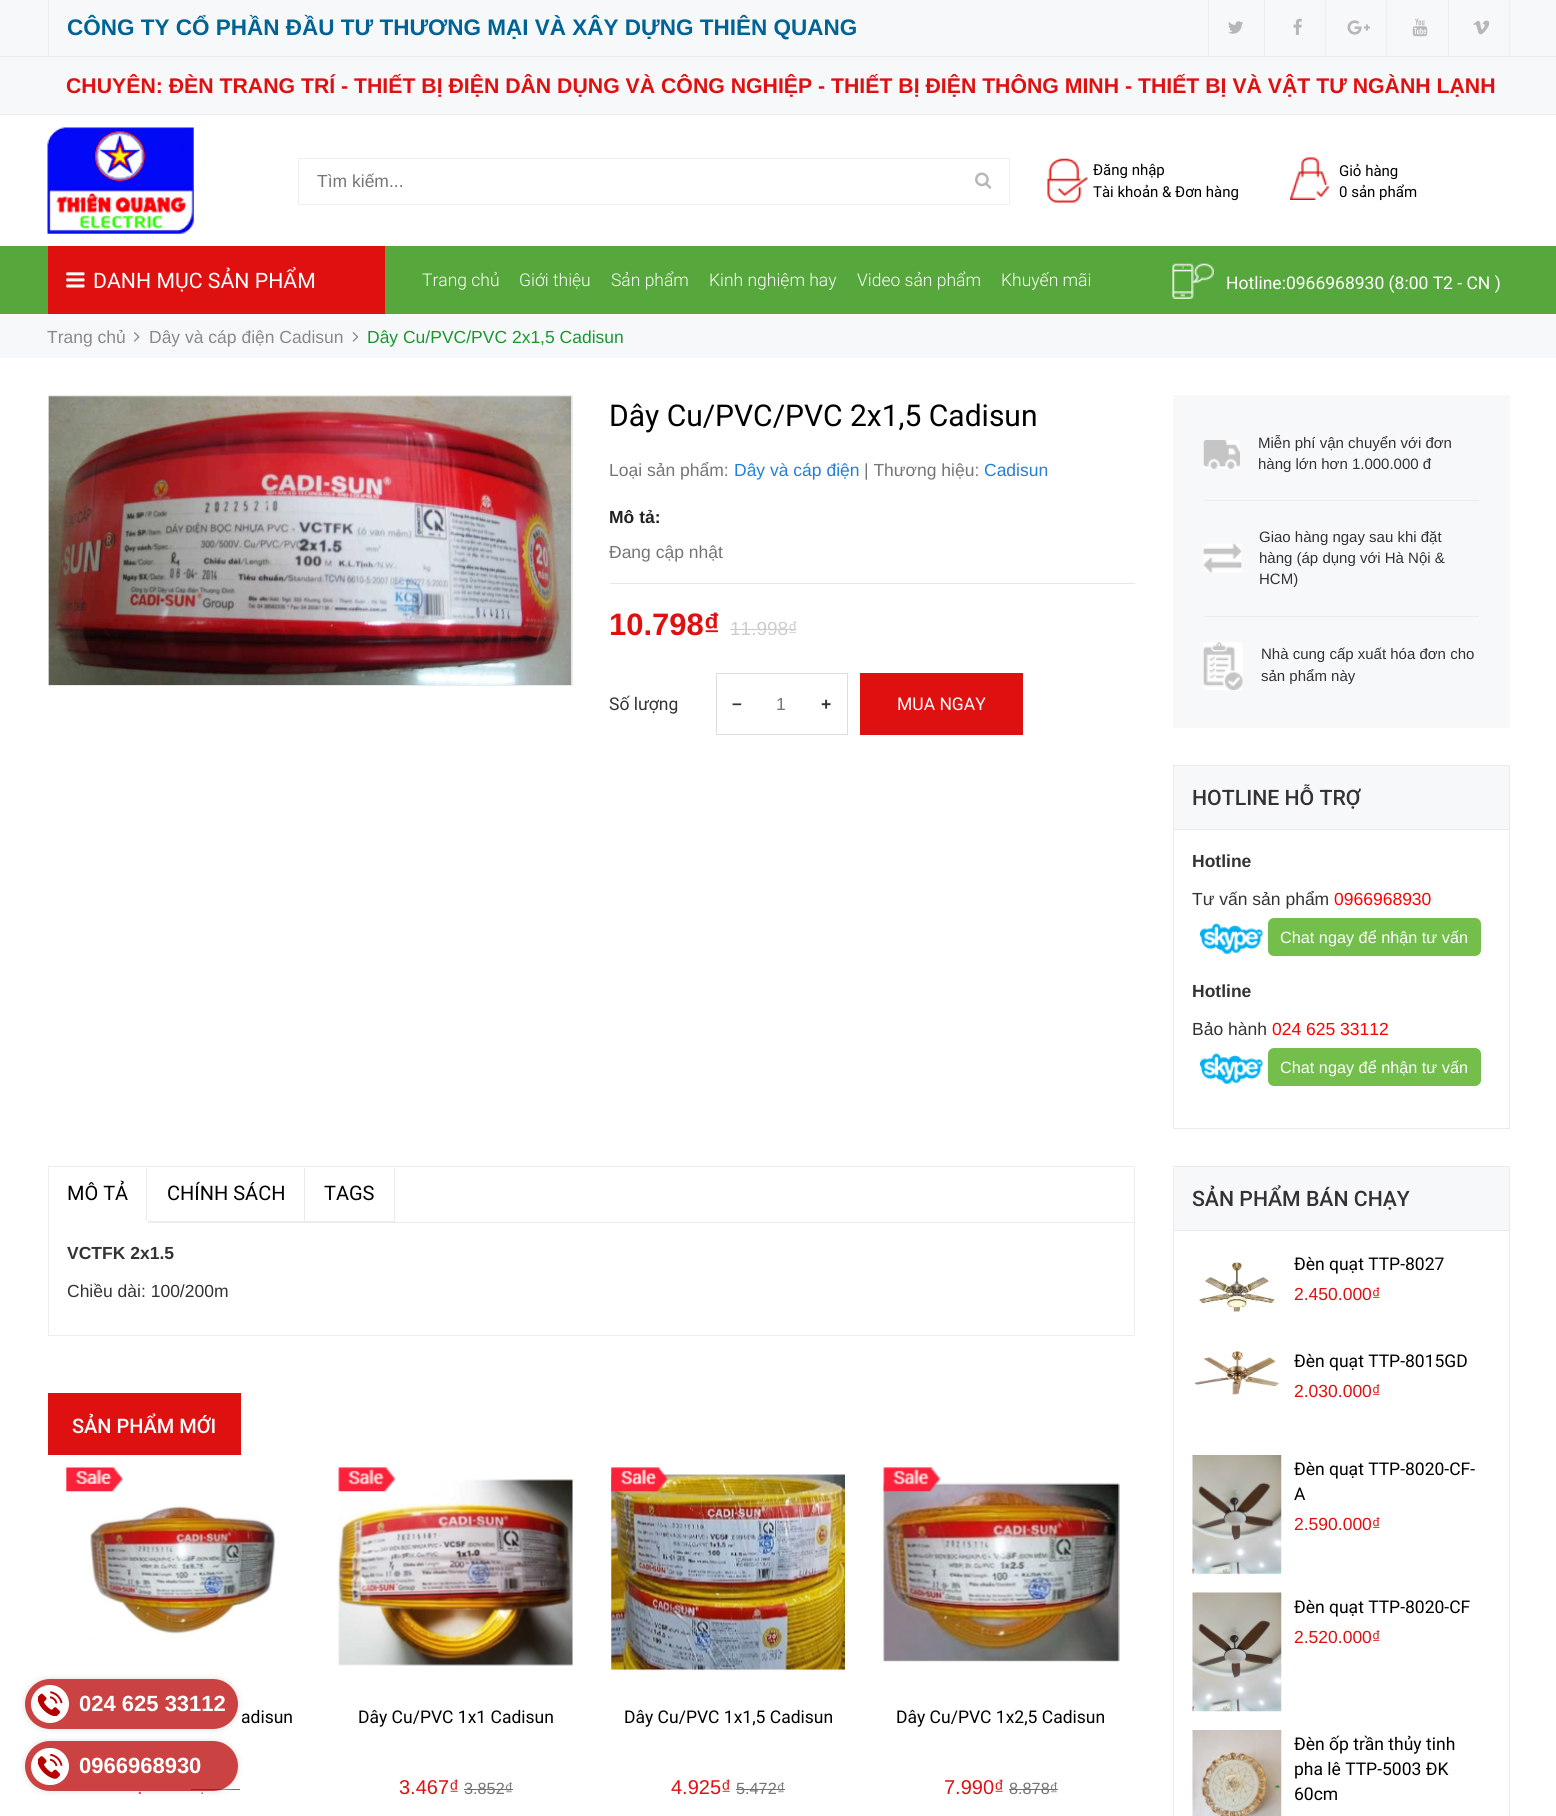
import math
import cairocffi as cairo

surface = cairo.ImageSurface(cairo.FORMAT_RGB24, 1556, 1816)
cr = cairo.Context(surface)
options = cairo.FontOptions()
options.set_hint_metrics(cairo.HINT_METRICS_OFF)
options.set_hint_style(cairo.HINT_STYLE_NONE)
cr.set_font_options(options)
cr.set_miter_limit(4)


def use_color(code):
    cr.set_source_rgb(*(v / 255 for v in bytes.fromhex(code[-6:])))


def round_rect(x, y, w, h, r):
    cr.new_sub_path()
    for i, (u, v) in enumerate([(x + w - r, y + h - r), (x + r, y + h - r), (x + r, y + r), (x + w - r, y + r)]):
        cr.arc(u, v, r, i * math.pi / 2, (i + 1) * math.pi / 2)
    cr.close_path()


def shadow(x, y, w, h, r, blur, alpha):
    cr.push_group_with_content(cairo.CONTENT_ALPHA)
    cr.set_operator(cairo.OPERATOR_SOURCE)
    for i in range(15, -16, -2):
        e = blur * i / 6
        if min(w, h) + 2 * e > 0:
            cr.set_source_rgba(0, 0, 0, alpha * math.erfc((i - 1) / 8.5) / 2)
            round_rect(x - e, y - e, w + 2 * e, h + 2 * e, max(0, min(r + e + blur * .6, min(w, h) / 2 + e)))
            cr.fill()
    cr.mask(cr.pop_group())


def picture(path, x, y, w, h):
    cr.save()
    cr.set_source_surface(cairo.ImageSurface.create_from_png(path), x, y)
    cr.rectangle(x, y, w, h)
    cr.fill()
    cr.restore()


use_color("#ffffff")
cr.paint()
use_color("#f7f8f9")
cr.rectangle(0, 0, 1556, 114)
cr.fill()
use_color("#ebebeb")
cr.rectangle(0, 56, 1556, 1)
cr.fill()
cr.rectangle(48, 0, 1, 56)
cr.fill()
cr.select_font_face("Liberation Sans", cairo.FONT_SLANT_NORMAL, cairo.FONT_WEIGHT_BOLD)
cr.set_font_size(22.5)
use_color("#006396")
cr.move_to(67, 35)
cr.show_text("CÔNG TY CỔ PHẦN ĐẦU TƯ THƯƠNG MẠI VÀ XÂY DỰNG THIÊN QUANG")
use_color("#ebebeb")
cr.rectangle(1208, 0, 1, 56)
cr.fill()
cr.rectangle(1264, 0, 1, 56)
cr.fill()
picture("img1.png", 1228, 21, 15, 13)
cr.rectangle(1325, 0, 1, 56)
cr.fill()
picture("img2.png", 1293, 18, 9, 17)
cr.rectangle(1386, 0, 1, 56)
cr.fill()
picture("img3.png", 1347, 20, 23, 15)
cr.rectangle(1448, 0, 1, 56)
cr.fill()
picture("img4.png", 1412, 18, 16, 19)
cr.rectangle(1509, 0, 1, 56)
cr.fill()
picture("img5.png", 1473, 20, 17, 15)
cr.rectangle(0, 114, 1556, 1)
cr.fill()
cr.set_font_size(21.25)
use_color("#df1010")
cr.move_to(66, 93)
cr.show_text("CHUYÊN: ĐÈN TRANG TRÍ - THIẾT BỊ ĐIỆN DÂN DỤNG VÀ CÔNG NGHIỆP - THIẾT BỊ ĐIỆN THÔNG MINH - THIẾT BỊ VÀ VẬT TƯ NGÀNH LẠNH")
picture("img6.png", 47, 127, 147, 107)
cr.rectangle(298.5, 158.5, 711, 46)
use_color("#eeeeee")
cr.set_line_width(1)
cr.stroke()
cr.select_font_face("Liberation Sans")
cr.set_font_size(17.5)
use_color("#757575")
cr.move_to(317, 187)
cr.show_text("Tìm kiếm...")
picture("img7.png", 975, 172, 17, 17)
picture("img8.png", 1047, 158, 41, 45)
cr.select_font_face("Roboto")
cr.set_font_size(15)
use_color("#000000")
cr.move_to(1093, 175)
cr.show_text("Đăng nhập")
cr.move_to(1093, 197)
cr.show_text("Tài khoản & Đơn hàng")
picture("img9.png", 1290, 157, 39, 43)
cr.move_to(1339, 176)
cr.show_text("Giỏ hàng")
cr.move_to(1339, 197)
cr.show_text("0 sản phẩm")
use_color("#57a83c")
cr.rectangle(0, 246, 1556, 68)
cr.fill()
use_color("#df1010")
cr.rectangle(48, 246, 337, 68)
cr.fill()
picture("img10.png", 66, 272, 19, 16)
cr.set_font_size(21.25)
use_color("#ffffff")
cr.move_to(93, 288)
cr.show_text("DANH MỤC SẢN PHẨM")
cr.select_font_face("Roboto Light")
cr.set_font_size(17.5)
cr.move_to(422, 286)
cr.show_text("Trang chủ")
cr.move_to(519, 286)
cr.show_text("Giới thiệu")
cr.move_to(611, 286)
cr.show_text("Sản phẩm")
cr.move_to(709, 286)
cr.show_text("Kinh nghiệm hay")
cr.move_to(857, 286)
cr.show_text("Video sản phẩm")
cr.move_to(1001, 286)
cr.show_text("Khuyến mãi")
picture("img11.png", 1172, 263, 42, 36)
cr.select_font_face("Roboto")
cr.move_to(1226, 289)
cr.show_text("Hotline:0966968930 (8:00 T2 - CN )")
use_color("#f7f8f9")
cr.rectangle(0, 315, 1556, 43)
cr.fill()
cr.select_font_face("Liberation Sans")
use_color("#898989")
cr.move_to(47, 343)
cr.show_text("Trang chủ")
picture("img12.png", 134, 332, 6, 10)
cr.move_to(149, 343)
cr.show_text("Dây và cáp điện Cadisun")
picture("img13.png", 352, 332, 7, 10)
use_color("#17982f")
cr.move_to(367, 343)
cr.show_text("Dây Cu/PVC/PVC 2x1,5 Cadisun")
cr.rectangle(48.5, 395.5, 524, 290)
use_color("#ebebeb")
cr.stroke()
picture("img14.png", 48, 396, 524, 289)
cr.select_font_face("Roboto")
cr.set_font_size(30)
use_color("#000000")
cr.move_to(609, 426)
cr.show_text("Dây Cu/PVC/PVC 2x1,5 Cadisun")
cr.select_font_face("Liberation Sans")
cr.set_font_size(17.5)
use_color("#757575")
cr.move_to(609, 476)
cr.show_text("Loại sản phẩm:")
use_color("#207fdd")
cr.move_to(734, 476)
cr.show_text("Dây và cáp điện")
use_color("#757575")
cr.move_to(864, 476)
cr.show_text("| Thương hiệu:")
use_color("#207fdd")
cr.move_to(984, 476)
cr.show_text("Cadisun")
use_color("#e6e6e6")
cr.rectangle(610, 583, 525, 1)
cr.fill()
cr.select_font_face("Liberation Sans", cairo.FONT_SLANT_NORMAL, cairo.FONT_WEIGHT_BOLD)
use_color("#222222")
cr.move_to(609, 523)
cr.show_text("Mô tả:")
cr.select_font_face("Liberation Sans")
use_color("#757575")
cr.move_to(609, 558)
cr.show_text("Đang cập nhật")
cr.select_font_face("Liberation Sans", cairo.FONT_SLANT_NORMAL, cairo.FONT_WEIGHT_BOLD)
cr.set_font_size(31)
use_color("#df1010")
cr.move_to(609, 635)
cr.show_text("10.798₫")
cr.select_font_face("Liberation Sans")
cr.set_font_size(19)
use_color("#cdcdcd")
cr.move_to(730, 635)
cr.show_text("11.998₫")
cr.rectangle(730, 629, 66, 1)
cr.fill()
cr.select_font_face("Roboto")
cr.set_font_size(17.5)
use_color("#333333")
cr.move_to(609, 710)
cr.show_text("Số lượng")
cr.rectangle(716.5, 673.5, 131, 61)
use_color("#dddddd")
cr.stroke()
cr.select_font_face("Liberation Sans", cairo.FONT_SLANT_NORMAL, cairo.FONT_WEIGHT_BOLD)
use_color("#333333")
cr.move_to(732, 709)
cr.show_text("–")
cr.select_font_face("Liberation Sans")
use_color("#757575")
cr.move_to(776, 710)
cr.show_text("1")
cr.select_font_face("Liberation Sans", cairo.FONT_SLANT_NORMAL, cairo.FONT_WEIGHT_BOLD)
use_color("#333333")
cr.move_to(821, 710)
cr.show_text("+")
use_color("#df1010")
cr.rectangle(860, 673, 163, 62)
cr.fill()
cr.select_font_face("Roboto")
use_color("#ffffff")
cr.move_to(897, 710)
cr.show_text("MUA NGAY")
use_color("#f7f8f9")
cr.rectangle(1173, 395, 337, 333)
cr.fill()
use_color("#ebebeb")
cr.rectangle(1204, 500, 275, 1)
cr.fill()
picture("img15.png", 1203, 440, 37, 29)
cr.select_font_face("Liberation Sans")
cr.set_font_size(15)
use_color("#333333")
cr.move_to(1258, 448)
cr.show_text("Miễn phí vận chuyển với đơn")
cr.move_to(1258, 469)
cr.show_text("hàng lớn hơn 1.000.000 đ")
use_color("#ebebeb")
cr.rectangle(1204, 616, 275, 1)
cr.fill()
picture("img16.png", 1203, 543, 39, 30)
use_color("#333333")
cr.move_to(1259, 542)
cr.show_text("Giao hàng ngay sau khi đặt")
cr.move_to(1259, 563)
cr.show_text("hàng (áp dụng với Hà Nội &")
cr.move_to(1259, 584)
cr.show_text("HCM)")
picture("img17.png", 1203, 642, 40, 48)
cr.move_to(1261, 659)
cr.show_text("Nhà cung cấp xuất hóa đơn cho")
cr.move_to(1261, 681)
cr.show_text("sản phẩm này")
use_color("#f7f8f9")
cr.rectangle(1173.5, 765.5, 336, 64)
cr.fill_preserve()
use_color("#ebebeb")
cr.stroke()
cr.select_font_face("Roboto Medium")
cr.set_font_size(21.25)
use_color("#333333")
cr.move_to(1192, 805)
cr.show_text("HOTLINE HỖ TRỢ")
use_color("#ebebeb")
cr.rectangle(1509, 830, 1, 299)
cr.fill()
cr.rectangle(1173, 1128, 337, 1)
cr.fill()
cr.rectangle(1173, 830, 1, 299)
cr.fill()
cr.select_font_face("Liberation Sans", cairo.FONT_SLANT_NORMAL, cairo.FONT_WEIGHT_BOLD)
cr.set_font_size(17.5)
use_color("#333333")
cr.move_to(1192, 867)
cr.show_text("Hotline")
cr.select_font_face("Liberation Sans")
cr.move_to(1192, 905)
cr.show_text("Tư vấn sản phẩm")
use_color("#ff0000")
cr.move_to(1334, 905)
cr.show_text("0966968930")
picture("img18.png", 1200, 923, 63, 31)
use_color("#74be4b")
round_rect(1268, 918, 213, 38, 6)
cr.fill()
cr.set_font_size(16.25)
use_color("#ffffff")
cr.move_to(1280, 943)
cr.show_text("Chat ngay để nhận tư vấn")
cr.select_font_face("Liberation Sans", cairo.FONT_SLANT_NORMAL, cairo.FONT_WEIGHT_BOLD)
cr.set_font_size(17.5)
use_color("#333333")
cr.move_to(1192, 997)
cr.show_text("Hotline")
cr.select_font_face("Liberation Sans")
cr.move_to(1192, 1035)
cr.show_text("Bảo hành")
use_color("#ff0000")
cr.move_to(1272, 1035)
cr.show_text("024 625 33112")
picture("img18.png", 1200, 1053, 63, 31)
use_color("#74be4b")
round_rect(1268, 1048, 213, 38, 6)
cr.fill()
cr.set_font_size(16.25)
use_color("#ffffff")
cr.move_to(1280, 1073)
cr.show_text("Chat ngay để nhận tư vấn")
cr.rectangle(48.5, 1166.5, 1086, 56)
use_color("#ededed")
cr.stroke()
use_color("#ebebeb")
cr.rectangle(146, 1168, 1, 55)
cr.fill()
cr.select_font_face("Roboto")
cr.set_font_size(20)
use_color("#000000")
cr.move_to(67, 1200)
cr.show_text("MÔ TẢ")
use_color("#ebebeb")
cr.rectangle(304, 1168, 1, 55)
cr.fill()
cr.rectangle(146, 1221, 159, 1)
cr.fill()
use_color("#ffffff")
cr.rectangle(49, 1221, 99, 2)
cr.fill()
use_color("#000000")
cr.move_to(167, 1200)
cr.show_text("CHÍNH SÁCH")
use_color("#ebebeb")
cr.rectangle(394, 1168, 1, 55)
cr.fill()
cr.rectangle(304, 1221, 91, 1)
cr.fill()
use_color("#000000")
cr.move_to(324, 1200)
cr.show_text("TAGS")
use_color("#ededed")
cr.rectangle(1134, 1223, 1, 113)
cr.fill()
cr.rectangle(48, 1335, 1087, 1)
cr.fill()
cr.rectangle(48, 1223, 1, 113)
cr.fill()
cr.select_font_face("Liberation Sans", cairo.FONT_SLANT_NORMAL, cairo.FONT_WEIGHT_BOLD)
cr.set_font_size(17.5)
use_color("#333333")
cr.move_to(67, 1259)
cr.show_text("VCTFK 2x1.5")
cr.select_font_face("Liberation Sans")
cr.move_to(67, 1297)
cr.show_text("Chiều dài: 100/200m")
use_color("#df1010")
cr.rectangle(48, 1393, 193, 62)
cr.fill()
cr.select_font_face("Roboto Medium")
cr.set_font_size(20)
use_color("#ffffff")
cr.move_to(72, 1433)
cr.show_text("SẢN PHẨM MỚI")
picture("img19.png", 66, 1467, 57, 25)
picture("img20.png", 89, 1505, 187, 137)
cr.select_font_face("Roboto")
cr.set_font_size(17.5)
use_color("#000000")
cr.move_to(241, 1723)
cr.show_text("adisun")
cr.select_font_face("Liberation Sans")
cr.set_font_size(20)
use_color("#df1010")
cr.move_to(137, 1794)
cr.show_text(".")
cr.set_font_size(16.25)
use_color("#757575")
cr.move_to(200, 1794)
cr.show_text(".")
use_color("#707070")
cr.rectangle(191, 1789, 49, 1)
cr.fill()
picture("img22.png", 338, 1479, 235, 187)
picture("img21.png", 338, 1467, 58, 25)
cr.select_font_face("Roboto")
cr.set_font_size(17.5)
use_color("#000000")
cr.move_to(358, 1723)
cr.show_text("Dây Cu/PVC 1x1 Cadisun")
cr.select_font_face("Liberation Sans")
cr.set_font_size(20)
use_color("#df1010")
cr.move_to(399, 1794)
cr.show_text("3.467₫")
cr.set_font_size(16.25)
use_color("#757575")
cr.move_to(464, 1794)
cr.show_text("3.852₫")
use_color("#707070")
cr.rectangle(464, 1789, 49, 1)
cr.fill()
picture("img24.png", 611, 1474, 234, 197)
picture("img23.png", 611, 1467, 57, 25)
cr.select_font_face("Roboto")
cr.set_font_size(17.5)
use_color("#000000")
cr.move_to(624, 1723)
cr.show_text("Dây Cu/PVC 1x1,5 Cadisun")
cr.select_font_face("Liberation Sans")
cr.set_font_size(20)
use_color("#df1010")
cr.move_to(671, 1794)
cr.show_text("4.925₫")
cr.set_font_size(16.25)
use_color("#757575")
cr.move_to(736, 1794)
cr.show_text("5.472₫")
use_color("#707070")
cr.rectangle(736, 1789, 49, 1)
cr.fill()
picture("img26.png", 883, 1482, 237, 180)
picture("img25.png", 883, 1467, 58, 25)
cr.select_font_face("Roboto")
cr.set_font_size(17.5)
use_color("#000000")
cr.move_to(896, 1723)
cr.show_text("Dây Cu/PVC 1x2,5 Cadisun")
cr.select_font_face("Liberation Sans")
cr.set_font_size(20)
use_color("#df1010")
cr.move_to(944, 1794)
cr.show_text("7.990₫")
cr.set_font_size(16.25)
use_color("#757575")
cr.move_to(1009, 1794)
cr.show_text("8.878₫")
use_color("#707070")
cr.rectangle(1009, 1789, 49, 1)
cr.fill()
use_color("#f7f8f9")
cr.rectangle(1173.5, 1166.5, 336, 64)
cr.fill_preserve()
use_color("#ebebeb")
cr.stroke()
cr.select_font_face("Roboto Medium")
cr.set_font_size(21.25)
use_color("#333333")
cr.move_to(1192, 1206)
cr.show_text("SẢN PHẨM BÁN CHẠY")
use_color("#ebebeb")
cr.rectangle(1509, 1231, 1, 585)
cr.fill()
cr.rectangle(1173, 1231, 1, 585)
cr.fill()
picture("img27.png", 1199, 1262, 76, 50)
cr.select_font_face("Roboto")
cr.set_font_size(17.5)
use_color("#000000")
cr.move_to(1294, 1270)
cr.show_text("Đèn quạt TTP-8027")
cr.select_font_face("Liberation Sans")
use_color("#df1010")
cr.move_to(1294, 1300)
cr.show_text("2.450.000₫")
picture("img28.png", 1194, 1351, 86, 44)
cr.select_font_face("Roboto")
use_color("#000000")
cr.move_to(1294, 1367)
cr.show_text("Đèn quạt TTP-8015GD")
cr.select_font_face("Liberation Sans")
use_color("#df1010")
cr.move_to(1294, 1397)
cr.show_text("2.030.000₫")
picture("img29.png", 1192, 1455, 90, 119)
cr.select_font_face("Roboto")
use_color("#000000")
cr.move_to(1294, 1475)
cr.show_text("Đèn quạt TTP-8020-CF-")
cr.move_to(1294, 1500)
cr.show_text("A")
cr.select_font_face("Liberation Sans")
use_color("#df1010")
cr.move_to(1294, 1530)
cr.show_text("2.590.000₫")
picture("img30.png", 1192, 1592, 90, 120)
cr.select_font_face("Roboto")
use_color("#000000")
cr.move_to(1294, 1613)
cr.show_text("Đèn quạt TTP-8020-CF")
cr.select_font_face("Liberation Sans")
use_color("#df1010")
cr.move_to(1294, 1643)
cr.show_text("2.520.000₫")
picture("img31.png", 1192, 1730, 90, 86)
cr.select_font_face("Roboto")
use_color("#000000")
cr.move_to(1294, 1750)
cr.show_text("Đèn ốp trần thủy tinh")
cr.move_to(1294, 1775)
cr.show_text("pha lê TTP-5003 ĐK")
cr.move_to(1294, 1800)
cr.show_text("60cm")
cr.save()
cr.set_fill_rule(cairo.FILL_RULE_EVEN_ODD)
cr.new_path()
cr.move_to(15, 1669)
cr.line_to(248, 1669)
cr.line_to(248, 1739)
cr.line_to(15, 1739)
cr.close_path()
cr.move_to(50, 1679)
cr.line_to(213, 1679)
cr.curve_to(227, 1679, 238, 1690, 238, 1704)
cr.curve_to(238, 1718, 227, 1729, 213, 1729)
cr.line_to(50, 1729)
cr.curve_to(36, 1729, 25, 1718, 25, 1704)
cr.curve_to(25, 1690, 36, 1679, 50, 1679)
cr.close_path()
cr.clip()
use_color("#dddddd")
shadow(25, 1679, 213, 50, 25, 3, 1)
cr.restore()
cr.set_source_rgba(0.718, 0.004, 0, 0.74)
round_rect(25, 1679, 213, 50, 25)
cr.fill()
use_color("#ffffff")
cr.arc(50, 1704, 19, 0, 2 * math.pi)
cr.fill()
picture("img32.png", 38, 1691, 25, 25)
cr.select_font_face("Liberation Sans", cairo.FONT_SLANT_NORMAL, cairo.FONT_WEIGHT_BOLD)
cr.set_font_size(22)
cr.move_to(79, 1711)
cr.show_text("024 625 33112")
cr.save()
cr.set_fill_rule(cairo.FILL_RULE_EVEN_ODD)
cr.new_path()
cr.move_to(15, 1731)
cr.line_to(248, 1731)
cr.line_to(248, 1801)
cr.line_to(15, 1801)
cr.close_path()
cr.move_to(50, 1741)
cr.line_to(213, 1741)
cr.curve_to(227, 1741, 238, 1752, 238, 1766)
cr.curve_to(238, 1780, 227, 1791, 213, 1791)
cr.line_to(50, 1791)
cr.curve_to(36, 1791, 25, 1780, 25, 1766)
cr.curve_to(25, 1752, 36, 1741, 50, 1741)
cr.close_path()
cr.clip()
use_color("#dddddd")
shadow(25, 1741, 213, 50, 25, 3, 1)
cr.restore()
cr.set_source_rgba(0.718, 0.004, 0, 0.74)
round_rect(25, 1741, 213, 50, 25)
cr.fill()
use_color("#ffffff")
round_rect(31, 1748, 38, 37, 18.5)
cr.fill()
picture("img33.png", 38, 1754, 25, 25)
cr.move_to(79, 1773)
cr.show_text("0966968930")
surface.write_to_png("result.png")
